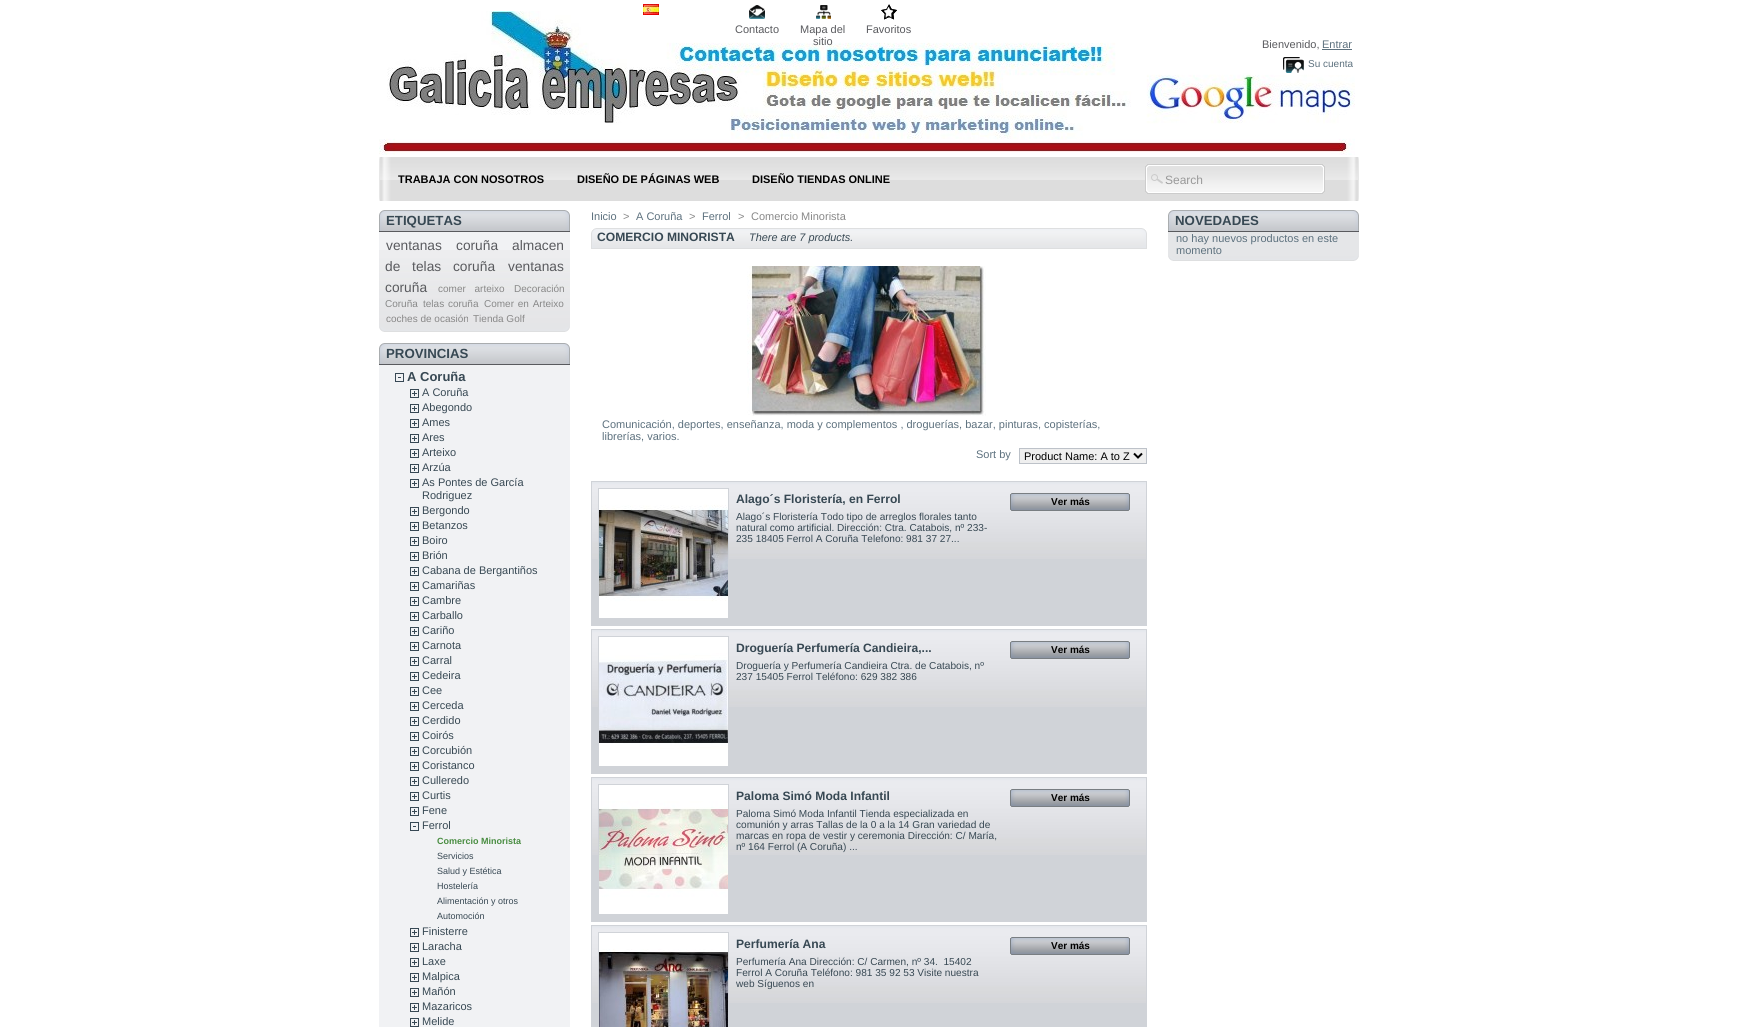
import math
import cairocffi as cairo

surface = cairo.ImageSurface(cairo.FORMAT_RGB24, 1738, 1027)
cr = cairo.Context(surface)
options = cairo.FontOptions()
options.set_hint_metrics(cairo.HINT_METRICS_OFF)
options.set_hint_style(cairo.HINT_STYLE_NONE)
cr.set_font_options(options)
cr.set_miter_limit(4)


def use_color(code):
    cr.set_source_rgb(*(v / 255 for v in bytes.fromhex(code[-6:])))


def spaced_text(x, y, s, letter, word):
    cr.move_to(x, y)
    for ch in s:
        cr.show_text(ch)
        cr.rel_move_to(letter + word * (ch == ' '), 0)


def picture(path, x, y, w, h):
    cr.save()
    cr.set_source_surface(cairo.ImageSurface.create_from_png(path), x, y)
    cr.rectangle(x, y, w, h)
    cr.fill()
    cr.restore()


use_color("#ffffff")
cr.paint()
picture("img1.png", 379, 11, 976, 144)
picture("img2.png", 643, 4, 16, 11)
picture("img3.png", 749, 5, 16, 14)
cr.select_font_face("Liberation Sans")
cr.set_font_size(11)
use_color("#595a5e")
cr.move_to(735, 33)
cr.show_text("Contacto")
picture("img4.png", 816, 5, 15, 14)
cr.move_to(800, 33)
cr.show_text("Mapa del")
cr.move_to(813, 45)
cr.show_text("sitio")
picture("img5.png", 881, 4, 16, 16)
cr.move_to(866, 33)
cr.show_text("Favoritos")
cr.move_to(1262, 48)
cr.show_text("Bienvenido,")
use_color("#5d717e")
cr.move_to(1322, 48)
cr.show_text("Entrar")
cr.rectangle(1322, 49, 30, 1)
cr.fill()
picture("img6.png", 1283, 57, 21, 16)
cr.set_font_size(10)
cr.move_to(1308, 67)
cr.show_text("Su cuenta")
picture("img7.png", 379, 157, 980, 44)
cr.select_font_face("Liberation Sans", cairo.FONT_SLANT_NORMAL, cairo.FONT_WEIGHT_BOLD)
cr.set_font_size(11)
use_color("#000000")
cr.move_to(398, 183)
cr.show_text("TRABAJA CON NOSOTROS")
cr.move_to(577, 183)
cr.show_text("DISEÑO DE PÁGINAS WEB")
cr.move_to(752, 183)
cr.show_text("DISEÑO TIENDAS ONLINE")
picture("img8.png", 1145, 164, 180, 30)
cr.select_font_face("Liberation Sans")
cr.set_font_size(12)
use_color("#999999")
cr.move_to(1165, 184)
cr.show_text("Search")
picture("img9.png", 379, 327, 191, 5)
picture("img10.png", 379, 210, 191, 21)
use_color("#595a5e")
cr.rectangle(379, 231, 191, 1)
cr.fill()
cr.select_font_face("Liberation Sans", cairo.FONT_SLANT_NORMAL, cairo.FONT_WEIGHT_BOLD)
cr.set_font_size(13.25)
use_color("#374853")
cr.move_to(386, 225)
cr.show_text("ETIQUETAS")
use_color("#f1f2f4")
cr.rectangle(379, 232, 191, 18)
cr.fill()
picture("img11.png", 379, 250, 191, 77)
cr.select_font_face("Liberation Sans")
cr.set_font_size(13.75)
use_color("#595a5e")
cr.move_to(386, 250)
cr.show_text("ventanas")
cr.move_to(456, 250)
cr.show_text("coruña")
cr.move_to(512, 250)
cr.show_text("almacen")
spaced_text(385, 271, "de telas coruña", 0, 8)
cr.move_to(508, 271)
cr.show_text("ventanas")
cr.move_to(385, 292)
cr.show_text("coruña")
cr.set_font_size(10)
use_color("#888888")
spaced_text(438, 292, "comer arteixo", 0, 6)
cr.move_to(514, 292)
cr.show_text("Decoración")
cr.move_to(385, 307)
cr.show_text("Coruña")
spaced_text(423, 307, "telas coruña", 0, 1)
spaced_text(484, 307, "Comer en Arteixo", 0, 1)
cr.move_to(386, 322)
cr.show_text("coches de ocasión")
cr.move_to(473, 322)
cr.show_text("Tienda Golf")
picture("img10.png", 379, 343, 191, 21)
use_color("#595a5e")
cr.rectangle(379, 364, 191, 1)
cr.fill()
cr.select_font_face("Liberation Sans", cairo.FONT_SLANT_NORMAL, cairo.FONT_WEIGHT_BOLD)
cr.set_font_size(13.25)
use_color("#374853")
cr.move_to(386, 358)
cr.show_text("PROVINCIAS")
use_color("#f1f2f4")
cr.rectangle(379, 365, 191, 662)
cr.fill()
picture("img12.png", 395, 373, 9, 9)
cr.set_font_size(13)
use_color("#374853")
cr.move_to(407, 381)
cr.show_text("A Coruña")
picture("img13.png", 410, 389, 9, 9)
cr.select_font_face("Liberation Sans")
cr.set_font_size(11)
cr.move_to(422, 396)
cr.show_text("A Coruña")
picture("img13.png", 410, 404, 9, 9)
cr.move_to(422, 411)
cr.show_text("Abegondo")
picture("img13.png", 410, 419, 9, 9)
cr.move_to(422, 426)
cr.show_text("Ames")
picture("img13.png", 410, 434, 9, 9)
cr.move_to(422, 441)
cr.show_text("Ares")
picture("img13.png", 410, 449, 9, 9)
cr.move_to(422, 456)
cr.show_text("Arteixo")
picture("img13.png", 410, 464, 9, 9)
cr.move_to(422, 471)
cr.show_text("Arzúa")
picture("img13.png", 410, 479, 9, 9)
cr.move_to(422, 486)
cr.show_text("As Pontes de García")
cr.move_to(422, 499)
cr.show_text("Rodriguez")
picture("img13.png", 410, 507, 9, 9)
cr.move_to(422, 514)
cr.show_text("Bergondo")
picture("img13.png", 410, 522, 9, 9)
cr.move_to(422, 529)
cr.show_text("Betanzos")
picture("img13.png", 410, 537, 9, 9)
cr.move_to(422, 544)
cr.show_text("Boiro")
picture("img13.png", 410, 552, 9, 9)
cr.move_to(422, 559)
cr.show_text("Brión")
picture("img13.png", 410, 567, 9, 9)
cr.move_to(422, 574)
cr.show_text("Cabana de Bergantiños")
picture("img13.png", 410, 582, 9, 9)
cr.move_to(422, 589)
cr.show_text("Camariñas")
picture("img13.png", 410, 597, 9, 9)
cr.move_to(422, 604)
cr.show_text("Cambre")
picture("img13.png", 410, 612, 9, 9)
cr.move_to(422, 619)
cr.show_text("Carballo")
picture("img13.png", 410, 627, 9, 9)
cr.move_to(422, 634)
cr.show_text("Cariño")
picture("img13.png", 410, 642, 9, 9)
cr.move_to(422, 649)
cr.show_text("Carnota")
picture("img13.png", 410, 657, 9, 9)
cr.move_to(422, 664)
cr.show_text("Carral")
picture("img13.png", 410, 672, 9, 9)
cr.move_to(422, 679)
cr.show_text("Cedeira")
picture("img13.png", 410, 687, 9, 9)
cr.move_to(422, 694)
cr.show_text("Cee")
picture("img13.png", 410, 702, 9, 9)
cr.move_to(422, 709)
cr.show_text("Cerceda")
picture("img13.png", 410, 717, 9, 9)
cr.move_to(422, 724)
cr.show_text("Cerdido")
picture("img13.png", 410, 732, 9, 9)
cr.move_to(422, 739)
cr.show_text("Coirós")
picture("img13.png", 410, 747, 9, 9)
cr.move_to(422, 754)
cr.show_text("Corcubión")
picture("img13.png", 410, 762, 9, 9)
cr.move_to(422, 769)
cr.show_text("Coristanco")
picture("img13.png", 410, 777, 9, 9)
cr.move_to(422, 784)
cr.show_text("Culleredo")
picture("img13.png", 410, 792, 9, 9)
cr.move_to(422, 799)
cr.show_text("Curtis")
picture("img13.png", 410, 807, 9, 9)
cr.move_to(422, 814)
cr.show_text("Fene")
picture("img12.png", 410, 822, 9, 9)
cr.move_to(422, 829)
cr.show_text("Ferrol")
cr.select_font_face("Liberation Sans", cairo.FONT_SLANT_NORMAL, cairo.FONT_WEIGHT_BOLD)
cr.set_font_size(9)
use_color("#488c40")
cr.move_to(437, 844)
cr.show_text("Comercio Minorista")
cr.select_font_face("Liberation Sans")
use_color("#374853")
cr.move_to(437, 859)
cr.show_text("Servicios")
cr.move_to(437, 874)
cr.show_text("Salud y Estética")
cr.move_to(437, 889)
cr.show_text("Hostelería")
cr.move_to(437, 904)
cr.show_text("Alimentación y otros")
cr.move_to(437, 919)
cr.show_text("Automoción")
picture("img13.png", 410, 928, 9, 9)
cr.set_font_size(11)
cr.move_to(422, 935)
cr.show_text("Finisterre")
picture("img13.png", 410, 943, 9, 9)
cr.move_to(422, 950)
cr.show_text("Laracha")
picture("img13.png", 410, 958, 9, 9)
cr.move_to(422, 965)
cr.show_text("Laxe")
picture("img13.png", 410, 973, 9, 9)
cr.move_to(422, 980)
cr.show_text("Malpica")
picture("img13.png", 410, 988, 9, 9)
cr.move_to(422, 995)
cr.show_text("Mañón")
picture("img13.png", 410, 1003, 9, 9)
cr.move_to(422, 1010)
cr.show_text("Mazaricos")
picture("img13.png", 410, 1018, 9, 9)
cr.move_to(422, 1025)
cr.show_text("Melide")
use_color("#5d717e")
cr.move_to(591, 220)
cr.show_text("Inicio")
use_color("#888888")
cr.move_to(623, 220)
cr.show_text(">")
use_color("#5d717e")
cr.move_to(636, 220)
cr.show_text("A Coruña")
use_color("#888888")
cr.move_to(689, 220)
cr.show_text(">")
use_color("#5d717e")
cr.move_to(702, 220)
cr.show_text("Ferrol")
use_color("#888888")
cr.move_to(738, 220)
cr.show_text(">")
cr.move_to(751, 220)
cr.show_text("Comercio Minorista")
picture("img14.png", 591, 228, 556, 21)
cr.select_font_face("Liberation Sans", cairo.FONT_SLANT_NORMAL, cairo.FONT_WEIGHT_BOLD)
cr.set_font_size(12.1)
use_color("#374853")
cr.move_to(597, 241)
cr.show_text("COMERCIO MINORISTA")
cr.select_font_face("Liberation Sans", cairo.FONT_SLANT_ITALIC)
cr.set_font_size(10.9)
cr.move_to(749, 241)
cr.show_text("There are 7 products.")
picture("img15.png", 747, 266, 239, 150)
cr.select_font_face("Liberation Sans")
cr.set_font_size(11)
use_color("#5d717e")
cr.move_to(602, 428)
cr.show_text("Comunicación, deportes, enseñanza, moda y complementos , droguerías, bazar, pinturas, copisterías,")
cr.move_to(602, 440)
cr.show_text("librerías, varios.")
cr.move_to(976, 458)
cr.show_text("Sort by")
use_color("#efefef")
cr.rectangle(1019.5, 448.5, 127, 15)
cr.fill_preserve()
use_color("#bdc2c9")
cr.set_line_width(1)
cr.stroke()
cr.new_path()
cr.move_to(1134, 453.5)
cr.line_to(1138, 457.5)
cr.line_to(1142, 453.5)
use_color("#000000")
cr.set_line_width(2)
cr.stroke()
cr.move_to(1024, 460)
cr.show_text("Product Name: A to Z")
use_color("#d0d3d8")
cr.rectangle(592, 559, 554, 66)
cr.fill()
picture("img16.png", 592, 482, 554, 77)
cr.rectangle(591.5, 481.5, 555, 144)
cr.set_line_width(1)
cr.stroke()
cr.rectangle(598.5, 488.5, 130, 130)
cr.stroke()
picture("img17.png", 599, 489, 129, 129)
cr.select_font_face("Liberation Sans", cairo.FONT_SLANT_NORMAL, cairo.FONT_WEIGHT_BOLD)
cr.set_font_size(12.1)
use_color("#374853")
cr.move_to(736, 503)
cr.show_text("Alago´s Floristería, en Ferrol")
cr.select_font_face("Liberation Sans")
cr.set_font_size(10.1)
cr.move_to(736, 520)
cr.show_text("Alago´s Floristería Todo tipo de arreglos florales tanto")
cr.move_to(736, 531)
cr.show_text("natural como artificial. Dirección: Ctra. Catabois, nº 233-")
cr.move_to(736, 542)
cr.show_text("235 18405 Ferrol A Coruña Telefono: 981 37 27...")
picture("img18.png", 1010, 493, 120, 18)
cr.select_font_face("Liberation Sans", cairo.FONT_SLANT_NORMAL, cairo.FONT_WEIGHT_BOLD)
cr.set_font_size(10)
use_color("#000000")
cr.move_to(1051, 505)
cr.show_text("Ver más")
use_color("#d0d3d8")
cr.rectangle(592, 707, 554, 66)
cr.fill()
picture("img16.png", 592, 630, 554, 77)
cr.rectangle(591.5, 629.5, 555, 144)
cr.stroke()
cr.rectangle(598.5, 636.5, 130, 130)
cr.stroke()
picture("img19.png", 599, 637, 129, 129)
cr.set_font_size(12.1)
use_color("#374853")
cr.move_to(736, 652)
cr.show_text("Droguería Perfumería Candieira,...")
cr.select_font_face("Liberation Sans")
cr.set_font_size(10.1)
cr.move_to(736, 669)
cr.show_text("Droguería y Perfumería Candieira Ctra. de Catabois, nº")
cr.move_to(736, 680)
cr.show_text("237 15405 Ferrol Teléfono: 629 382 386")
picture("img18.png", 1010, 641, 120, 18)
cr.select_font_face("Liberation Sans", cairo.FONT_SLANT_NORMAL, cairo.FONT_WEIGHT_BOLD)
cr.set_font_size(10)
use_color("#000000")
cr.move_to(1051, 653)
cr.show_text("Ver más")
use_color("#d0d3d8")
cr.rectangle(592, 855, 554, 66)
cr.fill()
picture("img16.png", 592, 778, 554, 77)
cr.rectangle(591.5, 777.5, 555, 144)
cr.stroke()
cr.rectangle(598.5, 784.5, 130, 130)
cr.stroke()
picture("img20.png", 599, 785, 129, 129)
cr.set_font_size(12.1)
use_color("#374853")
cr.move_to(736, 800)
cr.show_text("Paloma Simó Moda Infantil")
cr.select_font_face("Liberation Sans")
cr.set_font_size(10.1)
cr.move_to(736, 817)
cr.show_text("Paloma Simó Moda Infantil Tienda especializada en")
cr.move_to(736, 828)
cr.show_text("comunión y arras Tallas de la 0 a la 14 Gran variedad de")
cr.move_to(736, 839)
cr.show_text("marcas en ropa de vestir y ceremonia Dirección: C/ María,")
cr.move_to(736, 850)
cr.show_text("nº 164 Ferrol (A Coruña) ...")
picture("img18.png", 1010, 789, 120, 18)
cr.select_font_face("Liberation Sans", cairo.FONT_SLANT_NORMAL, cairo.FONT_WEIGHT_BOLD)
cr.set_font_size(10)
use_color("#000000")
cr.move_to(1051, 801)
cr.show_text("Ver más")
use_color("#d0d3d8")
cr.rectangle(592, 1003, 554, 24)
cr.fill()
picture("img16.png", 592, 926, 554, 77)
cr.rectangle(591.5, 925.5, 555, 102)
cr.stroke()
cr.rectangle(598.5, 932.5, 130, 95)
cr.stroke()
picture("img21.png", 599, 933, 129, 94)
cr.set_font_size(12.1)
use_color("#374853")
cr.move_to(736, 948)
cr.show_text("Perfumería Ana")
cr.select_font_face("Liberation Sans")
cr.set_font_size(10.1)
cr.move_to(736, 965)
cr.show_text("Perfumería Ana Dirección: C/ Carmen, nº 34.  15402")
cr.move_to(736, 976)
cr.show_text("Ferrol A Coruña Teléfono: 981 35 92 53 Visite nuestra")
cr.move_to(736, 987)
cr.show_text("web Síguenos en")
picture("img18.png", 1010, 937, 120, 18)
cr.select_font_face("Liberation Sans", cairo.FONT_SLANT_NORMAL, cairo.FONT_WEIGHT_BOLD)
cr.set_font_size(10)
use_color("#000000")
cr.move_to(1051, 949)
cr.show_text("Ver más")
picture("img9.png", 1168, 256, 191, 5)
picture("img10.png", 1168, 210, 191, 21)
use_color("#595a5e")
cr.rectangle(1168, 231, 191, 1)
cr.fill()
cr.set_font_size(13.25)
use_color("#374853")
cr.move_to(1175, 225)
cr.show_text("NOVEDADES")
use_color("#e5e6e8")
cr.rectangle(1168, 232, 191, 24)
cr.fill()
cr.select_font_face("Liberation Sans")
cr.set_font_size(11)
use_color("#5d717e")
cr.move_to(1176, 242)
cr.show_text("no hay nuevos productos en este")
cr.move_to(1176, 254)
cr.show_text("momento")
surface.write_to_png("result.png")
